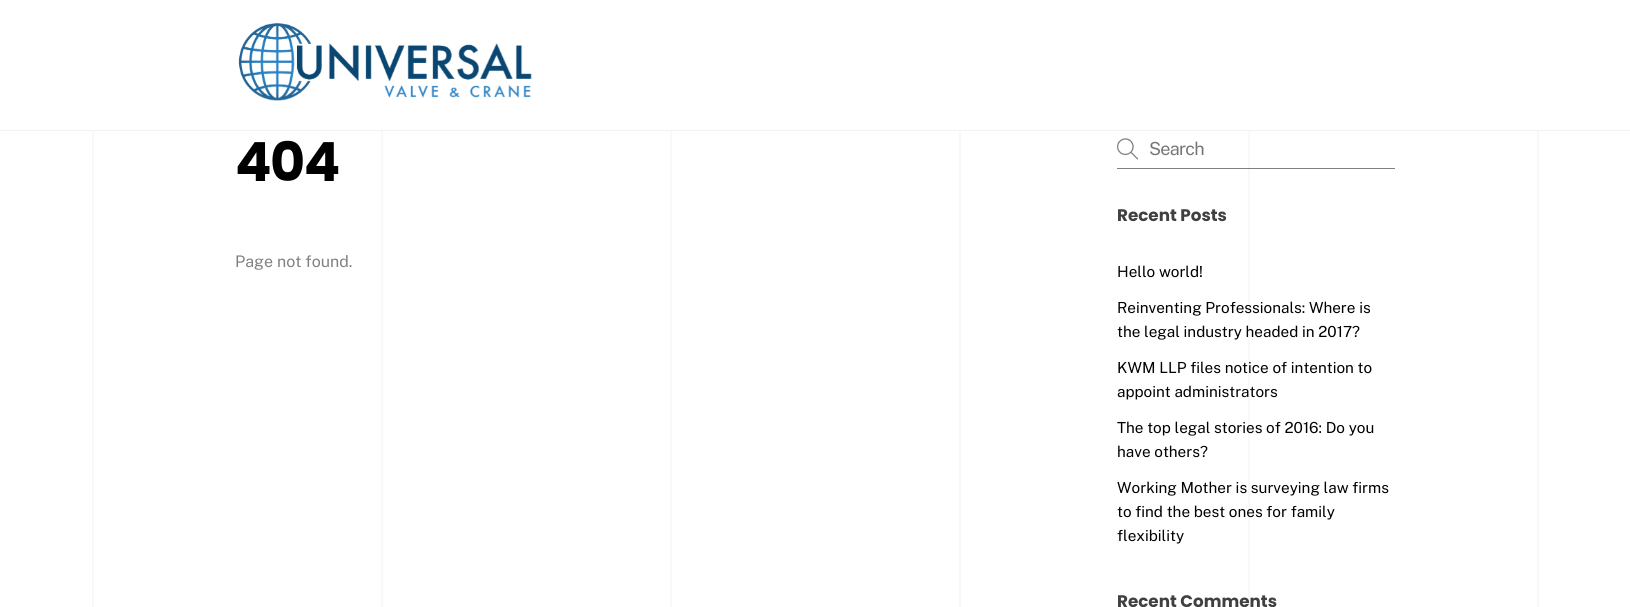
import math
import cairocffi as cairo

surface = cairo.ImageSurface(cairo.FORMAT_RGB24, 1630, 607)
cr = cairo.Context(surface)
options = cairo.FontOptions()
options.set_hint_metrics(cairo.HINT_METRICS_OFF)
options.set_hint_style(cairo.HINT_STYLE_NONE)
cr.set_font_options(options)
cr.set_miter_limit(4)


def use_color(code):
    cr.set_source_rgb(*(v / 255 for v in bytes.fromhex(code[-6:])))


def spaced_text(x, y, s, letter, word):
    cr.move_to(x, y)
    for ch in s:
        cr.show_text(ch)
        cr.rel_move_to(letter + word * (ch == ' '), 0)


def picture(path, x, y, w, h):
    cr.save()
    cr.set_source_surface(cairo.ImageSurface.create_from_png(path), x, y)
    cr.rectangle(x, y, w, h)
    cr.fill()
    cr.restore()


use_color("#ffffff")
cr.paint()
picture("img1.png", 92, 131, 1447, 476)
use_color("#f2f2f2")
cr.rectangle(0, 130, 1630, 1)
cr.fill()
picture("img2.png", 238, 23, 294, 78)
cr.select_font_face("Poppins", cairo.FONT_SLANT_NORMAL, cairo.FONT_WEIGHT_BOLD)
cr.set_font_size(54)
use_color("#000000")
spaced_text(235, 181, "404", -1.5, 0)
cr.select_font_face("Public Sans")
cr.set_font_size(16)
use_color("#808080")
cr.move_to(235, 267)
cr.show_text("Page not found.")
cr.rectangle(1117, 168, 278, 1)
cr.fill()
picture("img3.png", 1117, 138, 22, 22)
cr.set_font_size(18)
use_color("#757575")
spaced_text(1149, 155, "Search", -0.75, 0)
cr.select_font_face("Poppins", cairo.FONT_SLANT_NORMAL, cairo.FONT_WEIGHT_BOLD)
cr.set_font_size(16.75)
use_color("#404040")
cr.move_to(1117, 221)
cr.show_text("Recent Posts")
cr.select_font_face("Public Sans")
cr.set_font_size(15.25)
use_color("#000000")
cr.move_to(1117, 277)
cr.show_text("Hello world!")
cr.move_to(1117, 313)
cr.show_text("Reinventing Professionals: Where is")
cr.move_to(1117, 337)
cr.show_text("the legal industry headed in 2017?")
cr.move_to(1117, 373)
cr.show_text("KWM LLP files notice of intention to")
cr.move_to(1117, 397)
cr.show_text("appoint administrators")
cr.move_to(1117, 433)
cr.show_text("The top legal stories of 2016: Do you")
cr.move_to(1117, 457)
cr.show_text("have others?")
cr.move_to(1117, 493)
cr.show_text("Working Mother is surveying law firms")
cr.move_to(1117, 517)
cr.show_text("to find the best ones for family")
cr.move_to(1117, 541)
cr.show_text("flexibility")
cr.select_font_face("Poppins", cairo.FONT_SLANT_NORMAL, cairo.FONT_WEIGHT_BOLD)
cr.set_font_size(16.75)
use_color("#404040")
cr.move_to(1117, 607)
cr.show_text("Recent Comments")
surface.write_to_png("result.png")
